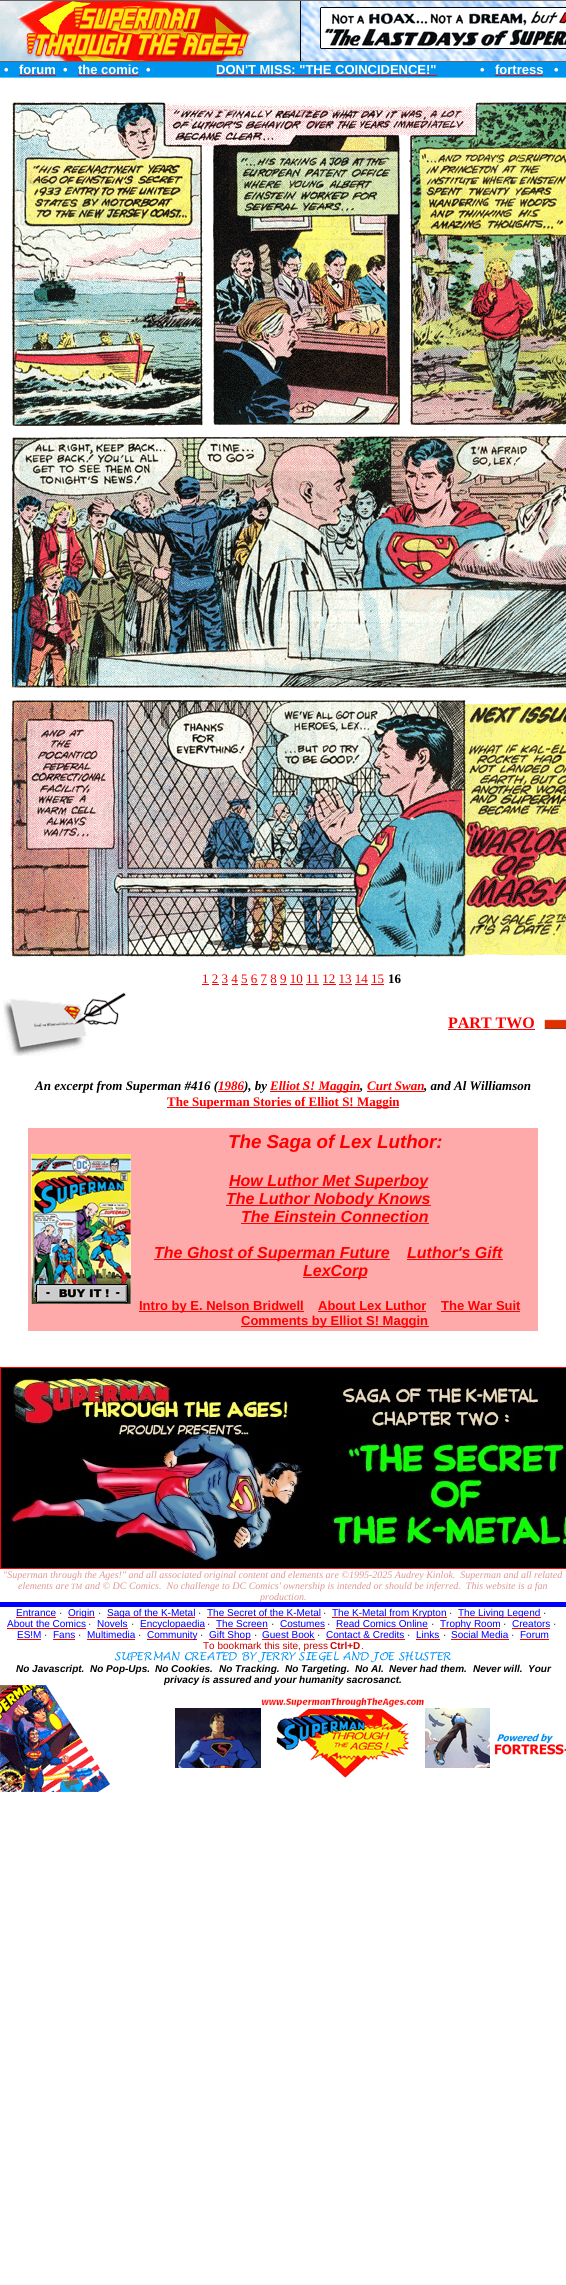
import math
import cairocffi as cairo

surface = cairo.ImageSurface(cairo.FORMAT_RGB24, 566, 2285)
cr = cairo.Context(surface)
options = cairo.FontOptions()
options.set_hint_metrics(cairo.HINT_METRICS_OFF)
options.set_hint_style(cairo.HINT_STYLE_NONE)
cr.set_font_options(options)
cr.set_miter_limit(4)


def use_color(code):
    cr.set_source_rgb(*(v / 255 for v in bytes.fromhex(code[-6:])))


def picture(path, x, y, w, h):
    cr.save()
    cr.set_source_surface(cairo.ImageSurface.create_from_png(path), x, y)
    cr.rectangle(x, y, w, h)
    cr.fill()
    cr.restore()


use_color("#ffffff")
cr.paint()
use_color("#666666")
cr.rectangle(0, 0, 566, 1)
cr.fill()
picture("img1.png", 0, 1, 300, 60)
use_color("#000000")
cr.rectangle(300, 1, 1, 60)
cr.fill()
picture("img2.png", 301, 1, 265, 60)
use_color("#666666")
cr.rectangle(0, 61, 566, 1)
cr.fill()
use_color("#0094ef")
cr.rectangle(0, 62, 566, 15)
cr.fill()
cr.select_font_face("Liberation Sans", cairo.FONT_SLANT_NORMAL, cairo.FONT_WEIGHT_BOLD)
cr.set_font_size(13)
use_color("#ffffff")
cr.move_to(4, 74)
cr.show_text("•")
cr.move_to(19, 74)
cr.show_text("forum")
use_color("#ff0000")
cr.rectangle(19, 75, 37, 1)
cr.fill()
use_color("#ffffff")
cr.move_to(63, 74)
cr.show_text("•")
cr.move_to(78, 74)
cr.show_text("the comic")
use_color("#ff0000")
cr.rectangle(78, 75, 61, 1)
cr.fill()
use_color("#ffffff")
cr.move_to(146, 74)
cr.show_text("•")
cr.move_to(216, 74)
cr.show_text("DON'T MISS: \"THE COINCIDENCE!\"")
use_color("#ff0000")
cr.rectangle(216, 75, 221, 1)
cr.fill()
use_color("#ffffff")
cr.move_to(480, 74)
cr.show_text("•")
cr.move_to(495, 74)
cr.show_text("fortress")
use_color("#ff0000")
cr.rectangle(495, 75, 48, 1)
cr.fill()
use_color("#ffffff")
cr.move_to(554, 74)
cr.show_text("•")
use_color("#45cdff")
cr.rectangle(0, 77, 566, 1)
cr.fill()
picture("img3.png", 6, 97, 560, 870)
cr.select_font_face("Liberation Serif")
use_color("#ff0000")
cr.move_to(202, 983)
cr.show_text("1 2 3 4 5 6 7 8 9 10 11 12 13 14 15")
cr.rectangle(202, 984, 7, 1)
cr.fill()
cr.rectangle(212, 984, 7, 1)
cr.fill()
cr.rectangle(222, 984, 6, 1)
cr.fill()
cr.rectangle(232, 984, 6, 1)
cr.fill()
cr.rectangle(241, 984, 7, 1)
cr.fill()
cr.rectangle(251, 984, 7, 1)
cr.fill()
cr.rectangle(261, 984, 6, 1)
cr.fill()
cr.rectangle(271, 984, 6, 1)
cr.fill()
cr.rectangle(280, 984, 7, 1)
cr.fill()
cr.rectangle(290, 984, 13, 1)
cr.fill()
cr.rectangle(306, 984, 13, 1)
cr.fill()
cr.rectangle(323, 984, 13, 1)
cr.fill()
cr.rectangle(339, 984, 13, 1)
cr.fill()
cr.rectangle(355, 984, 13, 1)
cr.fill()
cr.rectangle(371, 984, 13, 1)
cr.fill()
cr.select_font_face("Liberation Serif", cairo.FONT_SLANT_NORMAL, cairo.FONT_WEIGHT_BOLD)
use_color("#000000")
cr.move_to(388, 983)
cr.show_text("16")
picture("img4.png", 3, 992, 123, 64)
cr.set_font_size(16)
use_color("#ff0000")
cr.move_to(448, 1028)
cr.show_text("PART TWO")
cr.rectangle(448, 1029, 87, 1)
cr.fill()
picture("img5.png", 544, 1019, 22, 11)
cr.select_font_face("Liberation Serif", cairo.FONT_SLANT_ITALIC, cairo.FONT_WEIGHT_BOLD)
cr.set_font_size(13)
use_color("#000000")
cr.move_to(35, 1090)
cr.show_text("An excerpt from Superman #416 (")
use_color("#ff0000")
cr.move_to(218, 1090)
cr.show_text("1986")
cr.rectangle(218, 1091, 26, 1)
cr.fill()
use_color("#000000")
cr.move_to(244, 1090)
cr.show_text("), by")
use_color("#ff0000")
cr.rectangle(270, 1091, 90, 1)
cr.fill()
cr.move_to(270, 1090)
cr.show_text("Elliot S! Maggin")
use_color("#000000")
cr.move_to(360, 1090)
cr.show_text(",")
use_color("#ff0000")
cr.rectangle(367, 1091, 57, 1)
cr.fill()
cr.move_to(367, 1090)
cr.show_text("Curt Swan")
use_color("#000000")
cr.move_to(424, 1090)
cr.show_text(", and Al Williamson")
use_color("#ff0000")
cr.rectangle(167, 1107, 232, 1)
cr.fill()
cr.select_font_face("Liberation Serif", cairo.FONT_SLANT_NORMAL, cairo.FONT_WEIGHT_BOLD)
cr.move_to(167, 1106)
cr.show_text("The Superman Stories of Elliot S! Maggin")
use_color("#ffaaaa")
cr.rectangle(28, 1128, 510, 203)
cr.fill()
picture("img6.png", 31, 1154, 100, 150)
cr.select_font_face("Liberation Sans", cairo.FONT_SLANT_ITALIC, cairo.FONT_WEIGHT_BOLD)
cr.set_font_size(18.75)
use_color("#ff0000")
cr.move_to(228, 1148)
cr.show_text("The Saga of Lex Luthor:")
cr.rectangle(229, 1187, 199, 1)
cr.fill()
cr.set_font_size(16)
cr.move_to(229, 1186)
cr.show_text("How Luthor Met Superboy")
cr.rectangle(226, 1205, 205, 1)
cr.fill()
cr.move_to(226, 1204)
cr.show_text("The Luthor Nobody Knows")
cr.move_to(241, 1222)
cr.show_text("The Einstein Connection")
cr.rectangle(241, 1223, 188, 1)
cr.fill()
cr.rectangle(154, 1259, 236, 1)
cr.fill()
cr.move_to(154, 1258)
cr.show_text("The Ghost of Superman Future")
cr.move_to(407, 1258)
cr.show_text("Luthor's Gift")
cr.rectangle(407, 1259, 96, 1)
cr.fill()
cr.rectangle(303, 1277, 64, 1)
cr.fill()
cr.move_to(303, 1276)
cr.show_text("LexCorp")
cr.rectangle(139, 1311, 165, 1)
cr.fill()
cr.select_font_face("Liberation Sans", cairo.FONT_SLANT_NORMAL, cairo.FONT_WEIGHT_BOLD)
cr.set_font_size(13)
cr.move_to(139, 1310)
cr.show_text("Intro by E. Nelson Bridwell")
cr.move_to(318, 1310)
cr.show_text("About Lex Luthor")
cr.rectangle(318, 1311, 108, 1)
cr.fill()
cr.move_to(441, 1310)
cr.show_text("The War Suit")
cr.rectangle(441, 1311, 79, 1)
cr.fill()
cr.rectangle(241, 1326, 188, 1)
cr.fill()
cr.move_to(241, 1325)
cr.show_text("Comments by Elliot S! Maggin")
cr.rectangle(0.5, 1367.5, 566, 201)
cr.set_line_width(1)
cr.stroke()
picture("img7.png", 1, 1368, 565, 200)
cr.select_font_face("Liberation Serif", cairo.FONT_SLANT_ITALIC)
cr.set_font_size(10)
use_color("#dd9796")
cr.move_to(3, 1578)
cr.show_text("\"Superman through the Ages!\" and all associated original content and elements are ©1995-2025 Audrey Kinlok.  Superman and all related")
cr.move_to(18, 1589)
cr.show_text("elements are")
cr.set_font_size(8)
cr.move_to(71, 1589)
cr.show_text("TM")
cr.set_font_size(10)
cr.move_to(85, 1589)
cr.show_text("and © DC Comics.  No challenge to DC Comics' ownership is intended or should be inferred.  This website is a fan")
use_color("#0000ff")
cr.rectangle(0, 1602, 566, 5)
cr.fill()
use_color("#dd9796")
cr.move_to(260, 1600)
cr.show_text("production.")
cr.select_font_face("Liberation Sans")
use_color("#0000ff")
cr.move_to(16, 1616)
cr.show_text("Entrance")
use_color("#ff0000")
cr.rectangle(16, 1617, 40, 1)
cr.fill()
use_color("#000000")
cr.move_to(59, 1616)
cr.show_text("·")
use_color("#ff0000")
cr.rectangle(68, 1617, 27, 1)
cr.fill()
use_color("#0000ff")
cr.move_to(68, 1616)
cr.show_text("Origin")
use_color("#000000")
cr.move_to(98, 1616)
cr.show_text("·")
use_color("#ff0000")
cr.rectangle(107, 1617, 88, 1)
cr.fill()
use_color("#0000ff")
cr.move_to(107, 1616)
cr.show_text("Saga of the K-Metal")
use_color("#000000")
cr.move_to(198, 1616)
cr.show_text("·")
use_color("#0000ff")
cr.move_to(207, 1616)
cr.show_text("The Secret of the K-Metal")
use_color("#ff0000")
cr.rectangle(207, 1617, 114, 1)
cr.fill()
use_color("#000000")
cr.move_to(323, 1616)
cr.show_text("·")
use_color("#ff0000")
cr.rectangle(332, 1617, 115, 1)
cr.fill()
use_color("#0000ff")
cr.move_to(332, 1616)
cr.show_text("The K-Metal from Krypton")
use_color("#000000")
cr.move_to(449, 1616)
cr.show_text("·")
use_color("#ff0000")
cr.rectangle(458, 1617, 83, 1)
cr.fill()
use_color("#0000ff")
cr.move_to(458, 1616)
cr.show_text("The Living Legend")
use_color("#000000")
cr.move_to(543, 1616)
cr.show_text("·")
use_color("#0000ff")
cr.move_to(7, 1627)
cr.show_text("About the Comics")
use_color("#ff0000")
cr.rectangle(7, 1628, 79, 1)
cr.fill()
use_color("#000000")
cr.move_to(88, 1627)
cr.show_text("·")
use_color("#0000ff")
cr.move_to(97, 1627)
cr.show_text("Novels")
use_color("#ff0000")
cr.rectangle(97, 1628, 31, 1)
cr.fill()
use_color("#000000")
cr.move_to(131, 1627)
cr.show_text("·")
use_color("#ff0000")
cr.rectangle(140, 1628, 65, 1)
cr.fill()
use_color("#0000ff")
cr.move_to(140, 1627)
cr.show_text("Encyclopaedia")
use_color("#000000")
cr.move_to(207, 1627)
cr.show_text("·")
use_color("#0000ff")
cr.move_to(216, 1627)
cr.show_text("The Screen")
use_color("#ff0000")
cr.rectangle(216, 1628, 52, 1)
cr.fill()
use_color("#000000")
cr.move_to(271, 1627)
cr.show_text("·")
use_color("#0000ff")
cr.move_to(280, 1627)
cr.show_text("Costumes")
use_color("#ff0000")
cr.rectangle(280, 1628, 45, 1)
cr.fill()
use_color("#000000")
cr.move_to(327, 1627)
cr.show_text("·")
use_color("#0000ff")
cr.move_to(336, 1627)
cr.show_text("Read Comics Online")
use_color("#ff0000")
cr.rectangle(336, 1628, 92, 1)
cr.fill()
use_color("#000000")
cr.move_to(431, 1627)
cr.show_text("·")
use_color("#ff0000")
cr.rectangle(440, 1628, 60, 1)
cr.fill()
use_color("#0000ff")
cr.move_to(440, 1627)
cr.show_text("Trophy Room")
use_color("#000000")
cr.move_to(503, 1627)
cr.show_text("·")
use_color("#0000ff")
cr.move_to(512, 1627)
cr.show_text("Creators")
use_color("#ff0000")
cr.rectangle(512, 1628, 38, 1)
cr.fill()
use_color("#000000")
cr.move_to(553, 1627)
cr.show_text("·")
use_color("#0000ff")
cr.move_to(17, 1638)
cr.show_text("ES!M")
use_color("#ff0000")
cr.rectangle(17, 1639, 24, 1)
cr.fill()
use_color("#000000")
cr.move_to(44, 1638)
cr.show_text("·")
use_color("#0000ff")
cr.move_to(53, 1638)
cr.show_text("Fans")
use_color("#ff0000")
cr.rectangle(53, 1639, 22, 1)
cr.fill()
use_color("#000000")
cr.move_to(78, 1638)
cr.show_text("·")
use_color("#0000ff")
cr.move_to(87, 1638)
cr.show_text("Multimedia")
use_color("#ff0000")
cr.rectangle(87, 1639, 48, 1)
cr.fill()
use_color("#000000")
cr.move_to(138, 1638)
cr.show_text("·")
use_color("#ff0000")
cr.rectangle(147, 1639, 50, 1)
cr.fill()
use_color("#0000ff")
cr.move_to(147, 1638)
cr.show_text("Community")
use_color("#000000")
cr.move_to(200, 1638)
cr.show_text("·")
use_color("#ff0000")
cr.rectangle(209, 1639, 42, 1)
cr.fill()
use_color("#0000ff")
cr.move_to(209, 1638)
cr.show_text("Gift Shop")
use_color("#000000")
cr.move_to(254, 1638)
cr.show_text("·")
use_color("#0000ff")
cr.move_to(262, 1638)
cr.show_text("Guest Book")
use_color("#ff0000")
cr.rectangle(262, 1639, 53, 1)
cr.fill()
use_color("#000000")
cr.move_to(317, 1638)
cr.show_text("·")
use_color("#0000ff")
cr.move_to(326, 1638)
cr.show_text("Contact & Credits")
use_color("#ff0000")
cr.rectangle(326, 1639, 79, 1)
cr.fill()
use_color("#000000")
cr.move_to(407, 1638)
cr.show_text("·")
use_color("#0000ff")
cr.move_to(416, 1638)
cr.show_text("Links")
use_color("#ff0000")
cr.rectangle(416, 1639, 24, 1)
cr.fill()
use_color("#000000")
cr.move_to(443, 1638)
cr.show_text("·")
use_color("#0000ff")
cr.move_to(451, 1638)
cr.show_text("Social Media ·")
use_color("#ff0000")
cr.rectangle(451, 1639, 58, 1)
cr.fill()
use_color("#0000ff")
cr.move_to(520, 1638)
cr.show_text("Forum")
use_color("#ff0000")
cr.rectangle(520, 1639, 29, 1)
cr.fill()
use_color("#cc0000")
cr.move_to(203, 1649)
cr.show_text("To bookmark this site, press")
cr.select_font_face("Liberation Sans", cairo.FONT_SLANT_NORMAL, cairo.FONT_WEIGHT_BOLD)
cr.move_to(330, 1649)
cr.show_text("Ctrl+D")
cr.select_font_face("Liberation Sans")
cr.move_to(361, 1649)
cr.show_text(".")
picture("img8.png", 115, 1651, 336, 12)
cr.select_font_face("Liberation Sans", cairo.FONT_SLANT_ITALIC, cairo.FONT_WEIGHT_BOLD)
use_color("#000000")
cr.move_to(16, 1672)
cr.show_text("No Javascript.")
cr.move_to(90, 1672)
cr.show_text("No Pop-Ups.")
cr.move_to(155, 1672)
cr.show_text("No Cookies.")
cr.move_to(219, 1672)
cr.show_text("No Tracking.")
cr.move_to(285, 1672)
cr.show_text("No Targeting.")
cr.move_to(355, 1672)
cr.show_text("No AI.")
cr.move_to(389, 1672)
cr.show_text("Never had them.")
cr.move_to(473, 1672)
cr.show_text("Never will.")
cr.move_to(528, 1672)
cr.show_text("Your")
cr.move_to(164, 1683)
cr.show_text("privacy is assured and your humanity sacrosanct.")
picture("img9.png", 0, 1685, 110, 107)
picture("img10.png", 175, 1708, 86, 60)
picture("img11.png", 261, 1697, 163, 81)
picture("img12.png", 425, 1708, 65, 60)
picture("img13.png", 490, 1731, 76, 24)
surface.write_to_png("result.png")
